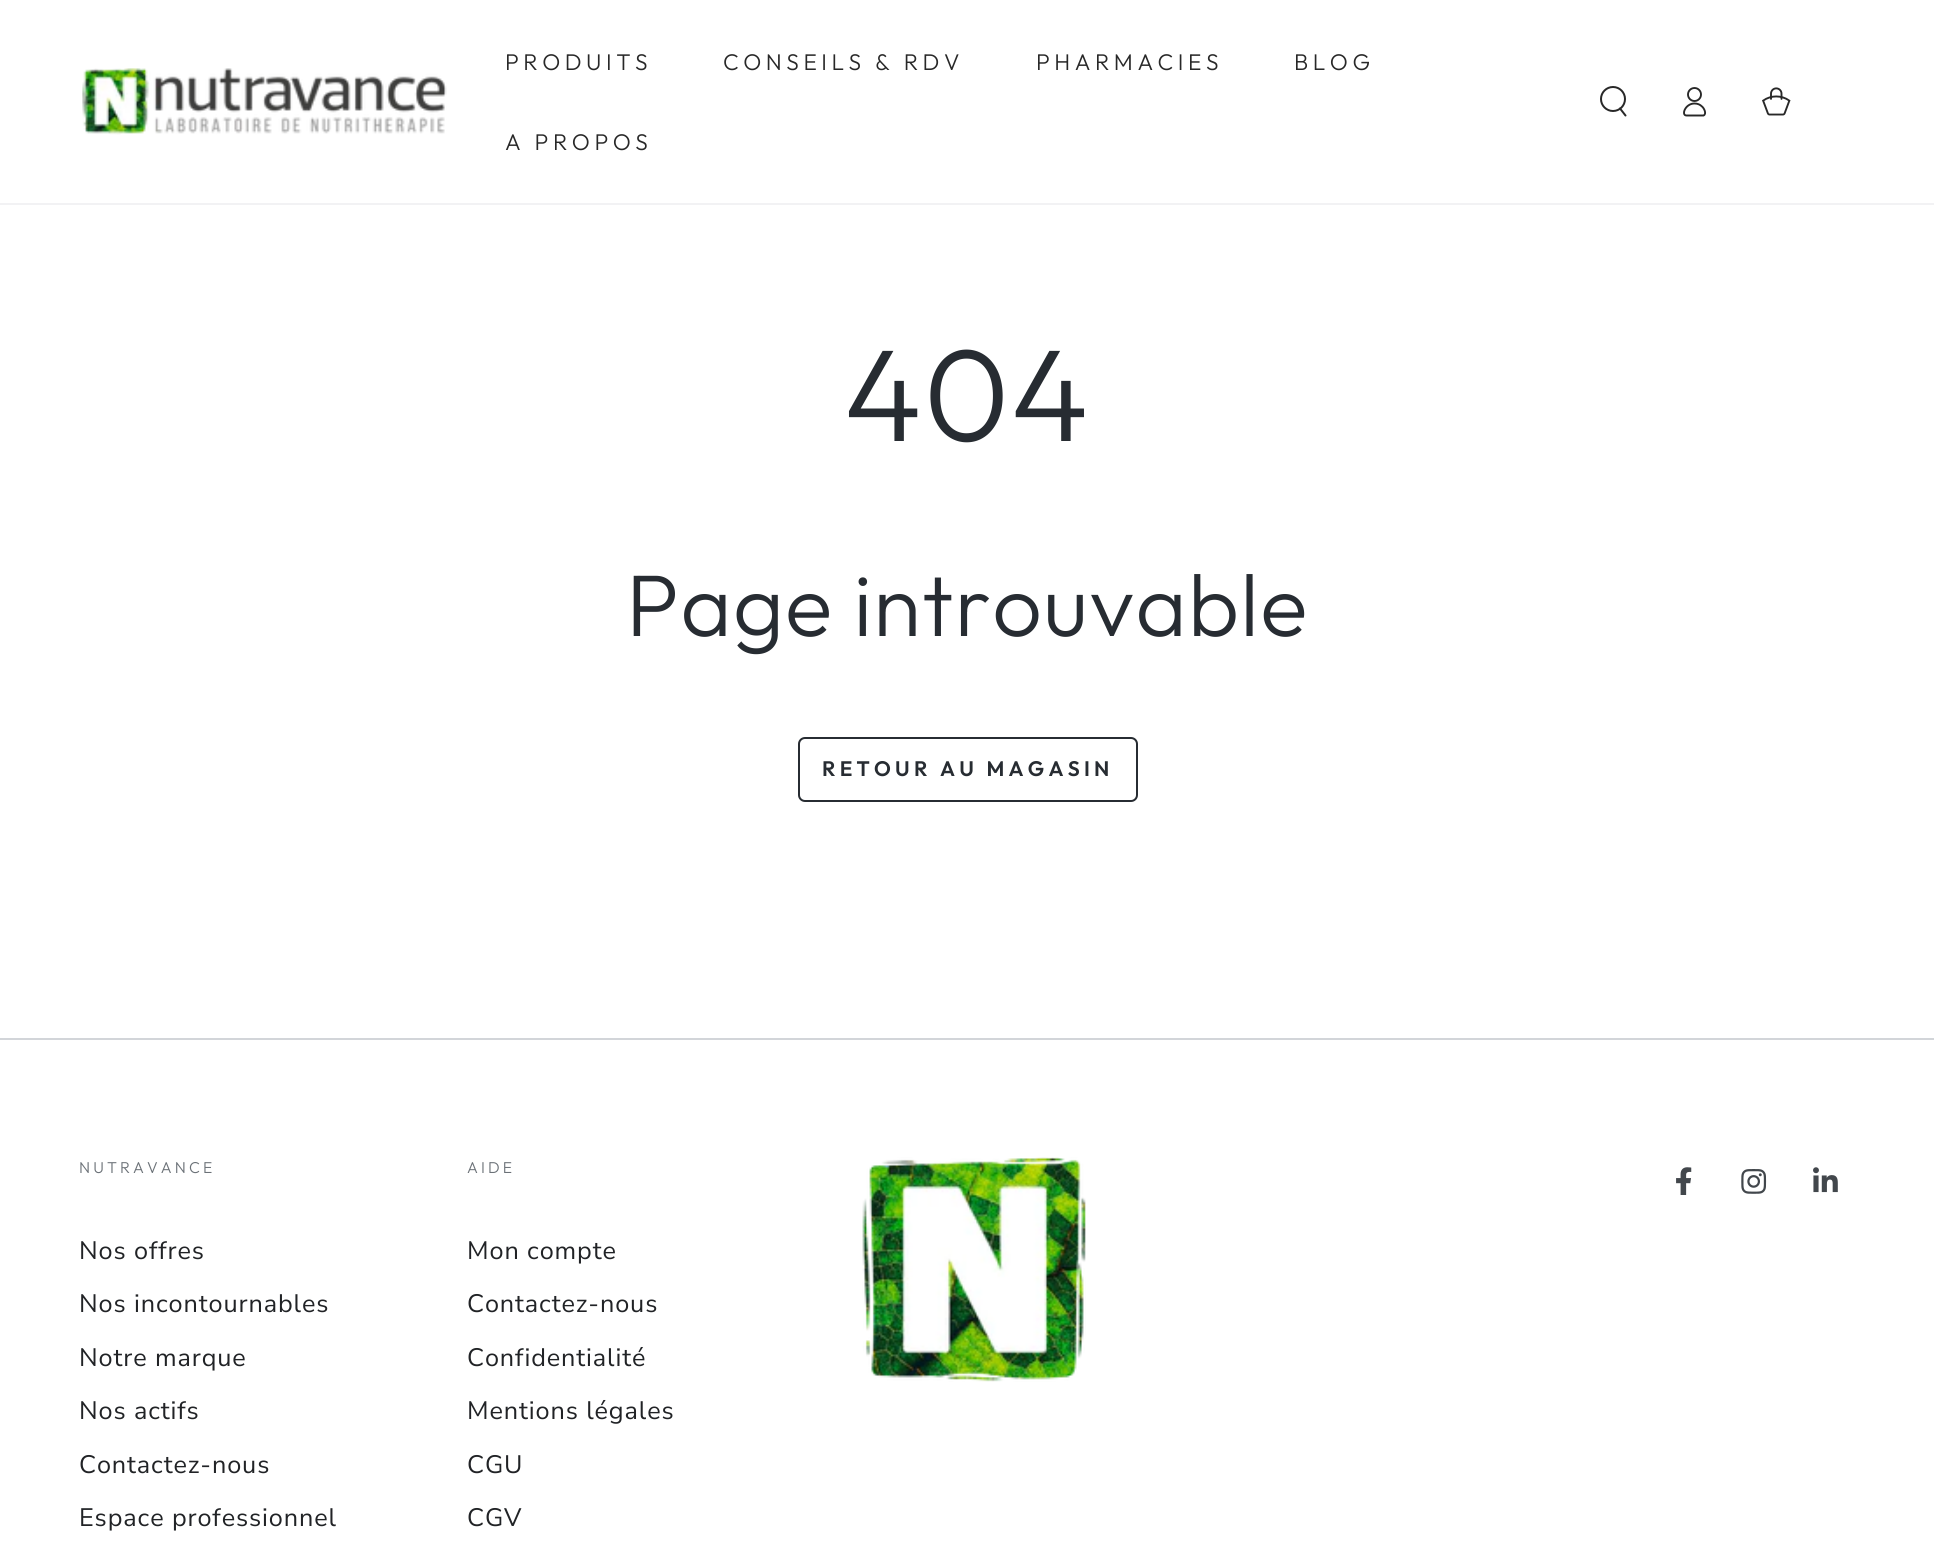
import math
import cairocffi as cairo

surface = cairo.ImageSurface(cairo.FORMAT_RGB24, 1934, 1558)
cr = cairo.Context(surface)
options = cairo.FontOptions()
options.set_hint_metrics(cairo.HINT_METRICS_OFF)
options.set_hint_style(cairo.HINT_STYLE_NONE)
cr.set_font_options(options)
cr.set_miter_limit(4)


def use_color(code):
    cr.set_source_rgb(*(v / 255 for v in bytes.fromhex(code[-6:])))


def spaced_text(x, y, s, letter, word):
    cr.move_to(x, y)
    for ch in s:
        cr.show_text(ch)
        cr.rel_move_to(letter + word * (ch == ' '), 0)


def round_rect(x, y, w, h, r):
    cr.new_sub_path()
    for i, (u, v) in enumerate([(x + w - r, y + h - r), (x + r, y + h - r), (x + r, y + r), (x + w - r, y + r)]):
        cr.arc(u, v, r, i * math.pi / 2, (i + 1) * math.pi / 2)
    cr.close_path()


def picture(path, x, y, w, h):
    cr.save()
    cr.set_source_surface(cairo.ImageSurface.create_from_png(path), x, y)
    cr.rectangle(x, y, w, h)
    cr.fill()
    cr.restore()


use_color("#ffffff")
cr.paint()
use_color("#f2f2f4")
cr.new_path()
cr.move_to(0, 203)
cr.line_to(0, 205)
cr.line_to(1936, 205)
cr.line_to(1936, 2)
cr.line_to(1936, 203)
cr.close_path()
cr.fill()
picture("img1.png", 82, 68, 365, 67)
cr.select_font_face("Outfit Light")
cr.set_font_size(22.75)
use_color("#282828")
spaced_text(505, 70, "PRODUITS", 4.5, 0)
spaced_text(723, 70, "CONSEILS & RDV", 4.5, 0)
spaced_text(1036, 70, "PHARMACIES", 4.5, 0)
spaced_text(1294, 70, "BLOG", 4.5, 0)
spaced_text(505, 150, "A PROPOS", 4.5, 0)
cr.new_path()
cr.arc(1613, 99, 12, 0, 2 * math.pi)
cr.stroke()
cr.new_path()
cr.move_to(1620, 108.5)
cr.line_to(1625.5, 115.5)
cr.set_line_cap(cairo.LINE_CAP_ROUND)
cr.stroke()
cr.new_path()
cr.move_to(1694.5, 103.5)
cr.curve_to(1685, 103.5, 1681, 115.5, 1686.5, 115.5)
cr.line_to(1703.5, 115.5)
cr.curve_to(1707, 114, 1704, 108, 1702, 106.5)
cr.curve_to(1700, 104.5, 1697.5, 103.5, 1694.5, 103.5)
cr.close_path()
cr.set_line_width(1.9)
cr.set_line_cap(cairo.LINE_CAP_BUTT)
cr.stroke()
cr.arc(1694.5, 94.5, 6.5, 0, 2 * math.pi)
cr.stroke()
picture("img2.png", 1762, 87, 29, 29)
cr.set_font_size(131)
use_color("#272c32")
spaced_text(844, 441, "404", 1.25, 0)
cr.set_font_size(87.5)
spaced_text(626, 636, "Page introuvable", 1.25, 0)
round_rect(799, 738, 338, 63, 6)
cr.set_line_width(2)
cr.stroke()
cr.select_font_face("Outfit SemiBold")
cr.set_font_size(21)
spaced_text(822, 776, "RETOUR AU MAGASIN", 4.25, 0)
use_color("#d2d5d9")
cr.rectangle(0, 1038, 1934, 2)
cr.fill()
cr.select_font_face("Outfit Light")
cr.set_font_size(15.75)
use_color("#6b7177")
spaced_text(79, 1173, "NUTRAVANCE", 3.1, 0)
cr.select_font_face("Nunito Sans")
cr.set_font_size(25.25)
use_color("#212326")
spaced_text(79, 1259, "Nos offres", 0.9, 0)
spaced_text(79, 1312, "Nos incontournables", 0.9, 0)
spaced_text(79, 1366, "Notre marque", 0.9, 0)
spaced_text(79, 1419, "Nos actifs", 0.9, 0)
spaced_text(79, 1473, "Contactez-nous", 0.9, 0)
spaced_text(79, 1526, "Espace professionnel", 0.9, 0)
cr.select_font_face("Outfit Light")
cr.set_font_size(15.75)
use_color("#6b7177")
spaced_text(467, 1173, "AIDE", 3.1, 0)
cr.select_font_face("Nunito Sans")
cr.set_font_size(25.25)
use_color("#212326")
spaced_text(467, 1259, "Mon compte", 0.9, 0)
spaced_text(467, 1312, "Contactez-nous", 0.9, 0)
spaced_text(467, 1366, "Confidentialité", 0.9, 0)
spaced_text(467, 1419, "Mentions légales", 0.9, 0)
spaced_text(467, 1473, "CGU", 0.9, 0)
spaced_text(467, 1526, "CGV", 0.9, 0)
picture("img3.png", 862, 1157, 224, 225)
picture("img4.png", 1676, 1167, 16, 28)
picture("img5.png", 1741, 1169, 26, 25)
picture("img6.png", 1813, 1167, 25, 26)
surface.write_to_png("result.png")
